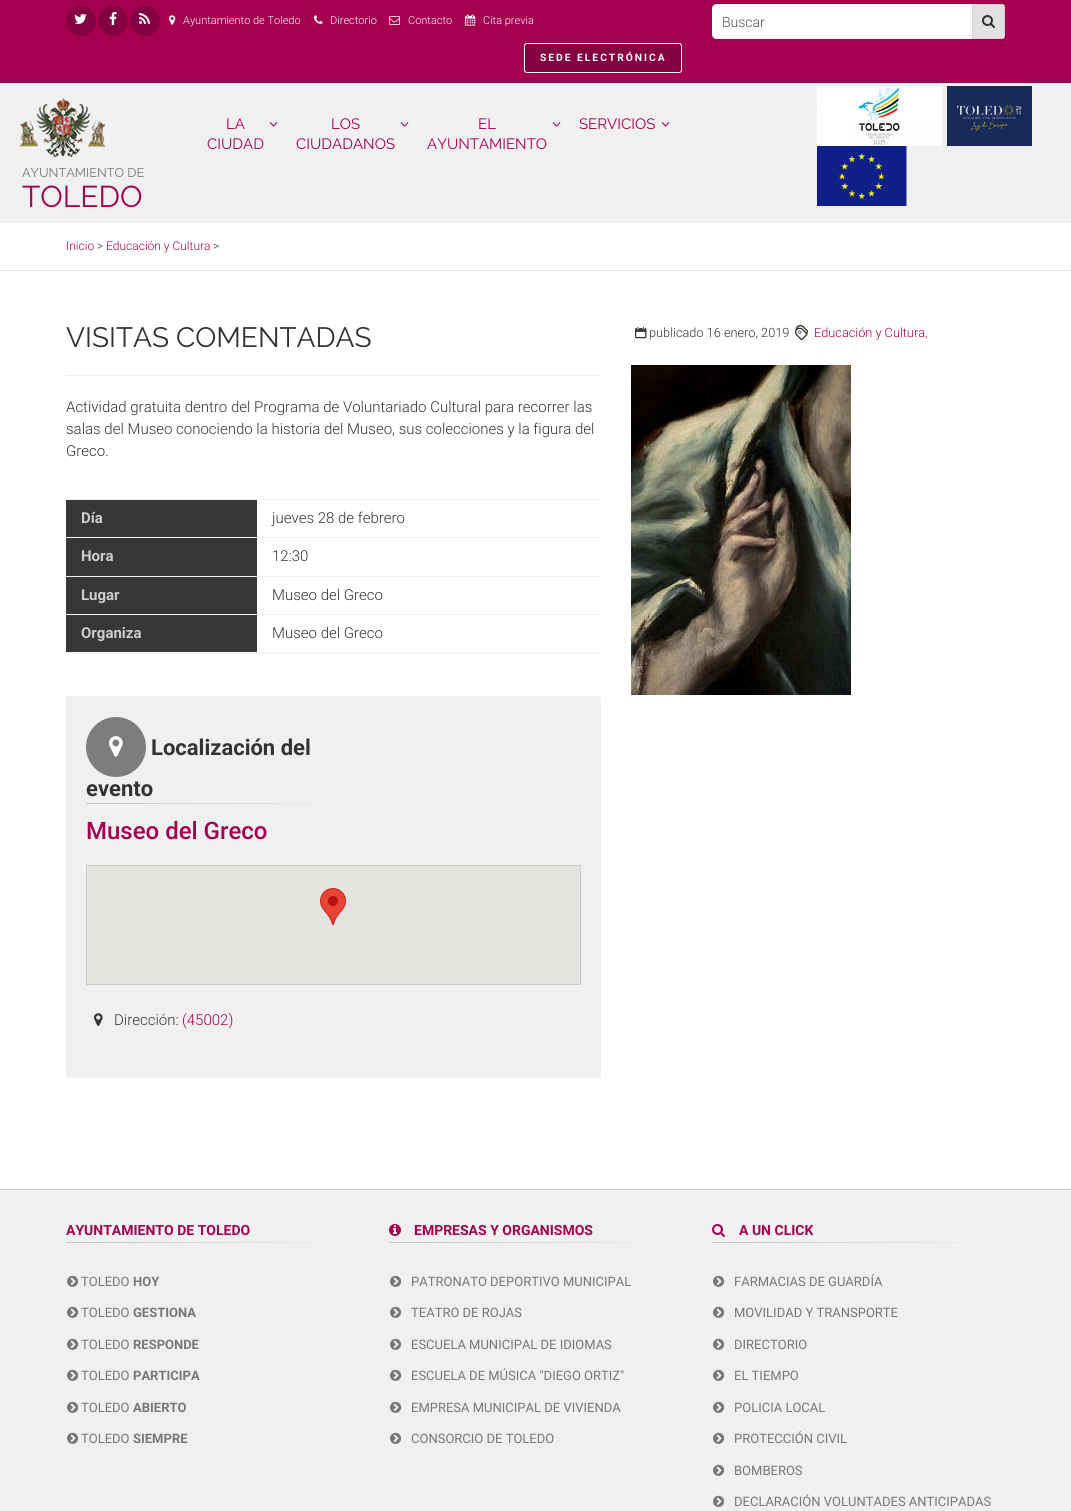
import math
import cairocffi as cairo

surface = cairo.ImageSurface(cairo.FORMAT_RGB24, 1071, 1511)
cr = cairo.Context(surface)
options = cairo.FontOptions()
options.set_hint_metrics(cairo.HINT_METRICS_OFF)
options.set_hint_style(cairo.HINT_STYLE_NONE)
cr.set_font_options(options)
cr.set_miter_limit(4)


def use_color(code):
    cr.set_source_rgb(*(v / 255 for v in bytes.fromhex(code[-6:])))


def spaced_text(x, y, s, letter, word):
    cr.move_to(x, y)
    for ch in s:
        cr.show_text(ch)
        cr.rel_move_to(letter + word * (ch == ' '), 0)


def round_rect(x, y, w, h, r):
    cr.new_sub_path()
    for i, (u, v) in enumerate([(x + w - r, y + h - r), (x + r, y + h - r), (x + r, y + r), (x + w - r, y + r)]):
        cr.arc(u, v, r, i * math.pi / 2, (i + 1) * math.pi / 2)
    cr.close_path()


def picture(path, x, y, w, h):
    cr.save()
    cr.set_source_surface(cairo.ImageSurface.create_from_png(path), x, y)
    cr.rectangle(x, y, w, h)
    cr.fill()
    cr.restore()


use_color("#ffffff")
cr.paint()
use_color("#a50050")
cr.rectangle(0, 0, 1071, 83)
cr.fill()
use_color("#840040")
cr.arc(81, 21, 15, 0, 2 * math.pi)
cr.fill()
picture("img1.png", 74, 14, 13, 10)
cr.arc(113, 21, 15, 0, 2 * math.pi)
cr.fill()
picture("img2.png", 109, 12, 8, 13)
cr.arc(145, 21, 15, 0, 2 * math.pi)
cr.fill()
picture("img3.png", 139, 13, 11, 11)
picture("img4.png", 169, 15, 7, 10)
cr.select_font_face("Roboto Light")
cr.set_font_size(11)
use_color("#ffffff")
cr.move_to(183, 24)
cr.show_text("Ayuntamiento de Toledo")
picture("img5.png", 314, 15, 9, 9)
cr.move_to(330, 24)
cr.show_text("Directorio")
picture("img6.png", 389, 16, 11, 9)
cr.move_to(408, 24)
cr.show_text("Contacto")
picture("img7.png", 465, 14, 11, 12)
cr.move_to(483, 24)
cr.show_text("Cita previa")
use_color("#840040")
round_rect(524.5, 43.5, 157, 29, 2.5)
cr.fill_preserve()
use_color("#ffffff")
cr.set_line_width(1)
cr.stroke()
cr.select_font_face("Roboto", cairo.FONT_SLANT_NORMAL, cairo.FONT_WEIGHT_BOLD)
cr.set_font_size(10.25)
spaced_text(540, 61, "SEDE ELECTRÓNICA", 2, 0)
cr.new_path()
cr.move_to(717, 4)
cr.line_to(972, 4)
cr.line_to(972, 39)
cr.line_to(717, 39)
cr.curve_to(714, 39, 712, 37, 712, 34)
cr.line_to(712, 9)
cr.curve_to(712, 6, 714, 4, 717, 4)
cr.close_path()
cr.fill()
cr.select_font_face("Roboto Light")
cr.set_font_size(14)
use_color("#505050")
cr.move_to(722, 27)
cr.show_text("Buscar")
use_color("#e1e1e1")
cr.new_path()
cr.move_to(972.5, 4.5)
cr.line_to(1002, 4.5)
cr.curve_to(1003.5, 4.5, 1004.5, 5.5, 1004.5, 7)
cr.line_to(1004.5, 36)
cr.curve_to(1004.5, 37.5, 1003.5, 38.5, 1002, 38.5)
cr.line_to(972.5, 38.5)
cr.close_path()
cr.fill_preserve()
use_color("#d3d3d3")
cr.stroke()
picture("img8.png", 982, 15, 13, 13)
use_color("#f0f0f0")
cr.rectangle(0, 83, 1071, 140)
cr.fill()
cr.select_font_face("Raleway")
cr.set_font_size(15)
use_color("#a50050")
cr.move_to(226, 129)
cr.show_text("LA")
picture("img9.png", 269, 122, 9, 5)
cr.move_to(207, 149)
cr.show_text("CIUDAD")
cr.move_to(331, 129)
cr.show_text("LOS")
picture("img9.png", 400, 122, 9, 5)
cr.move_to(296, 149)
cr.show_text("CIUDADANOS")
cr.move_to(478, 129)
cr.show_text("EL")
picture("img9.png", 552, 122, 9, 5)
cr.move_to(427, 149)
cr.show_text("AYUNTAMIENTO")
cr.move_to(579, 129)
cr.show_text("SERVICIOS")
picture("img9.png", 661, 122, 9, 5)
picture("img10.png", 817, 86, 125, 60)
picture("img11.png", 947, 86, 85, 60)
picture("img12.png", 817, 146, 90, 60)
picture("img13.png", 20, 98, 85, 60)
cr.set_font_size(12.75)
use_color("#777777")
cr.move_to(22, 177)
cr.show_text("AYUNTAMIENTO DE")
cr.set_font_size(30)
use_color("#a50050")
cr.move_to(22, 207)
cr.show_text("TOLEDO")
use_color("#e4e4e4")
cr.rectangle(0, 270, 1071, 1)
cr.fill()
cr.select_font_face("Roboto Light")
cr.set_font_size(12)
use_color("#a50050")
cr.move_to(66, 250)
cr.show_text("Inicio")
use_color("#333333")
cr.move_to(97, 250)
cr.show_text(">")
use_color("#a50050")
cr.move_to(106, 250)
cr.show_text("Educación y Cultura")
use_color("#333333")
cr.move_to(213, 250)
cr.show_text(">")
cr.select_font_face("Raleway")
cr.set_font_size(28)
cr.move_to(66, 347)
cr.show_text("VISITAS COMENTADAS")
use_color("#eeeeee")
cr.rectangle(66, 375, 535, 1)
cr.fill()
cr.select_font_face("Roboto Light")
cr.set_font_size(15)
use_color("#333333")
cr.move_to(66, 412)
cr.show_text("Actividad gratuita dentro del Programa de Voluntariado Cultural para recorrer las")
cr.move_to(66, 434)
cr.show_text("salas del Museo conociendo la historia del Museo, sus colecciones y la figura del")
cr.move_to(66, 456)
cr.show_text("Greco.")
use_color("#f3f3f3")
cr.rectangle(66, 652, 535, 2)
cr.fill()
use_color("#373737")
cr.rectangle(66, 500, 191, 37)
cr.fill()
cr.select_font_face("Roboto", cairo.FONT_SLANT_NORMAL, cairo.FONT_WEIGHT_BOLD)
use_color("#cdcdcd")
cr.move_to(81, 523)
cr.show_text("Día")
use_color("#f3f3f3")
cr.rectangle(65, 499, 537, 1)
cr.fill()
cr.select_font_face("Roboto Light")
use_color("#333333")
cr.move_to(272, 523)
cr.show_text("jueves 28 de febrero")
use_color("#373737")
cr.rectangle(66, 538, 191, 38)
cr.fill()
cr.select_font_face("Roboto", cairo.FONT_SLANT_NORMAL, cairo.FONT_WEIGHT_BOLD)
use_color("#cdcdcd")
cr.move_to(81, 561)
cr.show_text("Hora")
use_color("#f3f3f3")
cr.rectangle(65, 537, 537, 1)
cr.fill()
cr.select_font_face("Roboto Light")
use_color("#333333")
cr.move_to(272, 561)
cr.show_text("12:30")
use_color("#373737")
cr.rectangle(66, 577, 191, 37)
cr.fill()
cr.select_font_face("Roboto", cairo.FONT_SLANT_NORMAL, cairo.FONT_WEIGHT_BOLD)
use_color("#cdcdcd")
cr.move_to(81, 600)
cr.show_text("Lugar")
use_color("#f3f3f3")
cr.rectangle(65, 576, 537, 1)
cr.fill()
cr.select_font_face("Roboto Light")
use_color("#333333")
cr.move_to(272, 600)
cr.show_text("Museo del Greco")
use_color("#373737")
cr.rectangle(66, 615, 191, 37)
cr.fill()
cr.select_font_face("Roboto", cairo.FONT_SLANT_NORMAL, cairo.FONT_WEIGHT_BOLD)
use_color("#cdcdcd")
cr.move_to(81, 638)
cr.show_text("Organiza")
use_color("#f3f3f3")
cr.rectangle(65, 614, 537, 1)
cr.fill()
cr.select_font_face("Roboto Light")
use_color("#333333")
cr.move_to(272, 638)
cr.show_text("Museo del Greco")
use_color("#f0f0f0")
cr.rectangle(66, 697, 535, 380)
cr.fill()
use_color("#f3f3f3")
cr.rectangle(66, 696, 535, 1)
cr.fill()
cr.rectangle(66, 1077, 535, 1)
cr.fill()
use_color("#7d7d7d")
cr.arc(116, 747, 30, 0, 2 * math.pi)
cr.fill()
picture("img14.png", 109, 736, 14, 21)
cr.select_font_face("Roboto", cairo.FONT_SLANT_NORMAL, cairo.FONT_WEIGHT_BOLD)
cr.set_font_size(22)
use_color("#333333")
cr.move_to(151, 755)
cr.show_text("Localización del")
cr.move_to(86, 796)
cr.show_text("evento")
gradient = cairo.LinearGradient(86, 804, 362, 804)
gradient.add_color_stop_rgba(0, 0.773, 0.773, 0.773, 1)
gradient.add_color_stop_rgba(0.35, 0.827, 0.827, 0.827, 1)
gradient.add_color_stop_rgba(0.7, 0.894, 0.894, 0.894, 1)
gradient.add_color_stop_rgba(1, 0.941, 0.941, 0.941, 1)
cr.set_source(gradient)
cr.rectangle(86, 803, 259, 1)
cr.fill()
cr.select_font_face("Roboto Medium")
cr.set_font_size(24)
use_color("#a50050")
cr.move_to(86, 839)
cr.show_text("Museo del Greco")
cr.rectangle(86.5, 865.5, 494, 119)
use_color("#cccccc")
cr.stroke()
use_color("#e5e3df")
cr.rectangle(87, 866, 493, 118)
cr.fill()
picture("img15.png", 320, 888, 26, 37)
picture("img16.png", 94, 1013, 9, 13)
cr.select_font_face("Roboto Light")
cr.set_font_size(15)
use_color("#333333")
cr.move_to(114, 1025)
cr.show_text("Dirección:")
use_color("#a50050")
cr.move_to(182, 1025)
cr.show_text("(45002)")
picture("img17.png", 635, 326, 12, 13)
cr.set_font_size(12.75)
use_color("#333333")
cr.move_to(649, 337)
cr.show_text("publicado 16 enero, 2019")
picture("img18.png", 795, 324, 14, 17)
use_color("#a50050")
cr.move_to(814, 337)
cr.show_text("Educación y Cultura,")
picture("img19.png", 631, 365, 220, 330)
use_color("#f0f0f0")
cr.rectangle(0, 1190, 1071, 321)
cr.fill()
use_color("#cccccc")
cr.rectangle(0, 1189, 1071, 1)
cr.fill()
cr.select_font_face("Roboto", cairo.FONT_SLANT_NORMAL, cairo.FONT_WEIGHT_BOLD)
cr.set_font_size(14)
use_color("#a50050")
cr.move_to(66, 1235)
cr.show_text("AYUNTAMIENTO DE TOLEDO")
gradient = cairo.LinearGradient(66, 1243, 359, 1243)
gradient.add_color_stop_rgba(0, 0.773, 0.773, 0.773, 1)
gradient.add_color_stop_rgba(0.35, 0.827, 0.827, 0.827, 1)
gradient.add_color_stop_rgba(0.7, 0.894, 0.894, 0.894, 1)
gradient.add_color_stop_rgba(1, 0.941, 0.941, 0.941, 1)
cr.set_source(gradient)
cr.rectangle(66, 1242, 275, 1)
cr.fill()
picture("img20.png", 67, 1275, 12, 12)
cr.select_font_face("Roboto")
cr.set_font_size(13)
use_color("#777777")
cr.move_to(81, 1286)
cr.show_text("TOLEDO")
cr.select_font_face("Roboto", cairo.FONT_SLANT_NORMAL, cairo.FONT_WEIGHT_BOLD)
cr.move_to(133, 1286)
cr.show_text("HOY")
picture("img20.png", 67, 1306, 12, 12)
cr.select_font_face("Roboto")
cr.move_to(81, 1317)
cr.show_text("TOLEDO")
cr.select_font_face("Roboto", cairo.FONT_SLANT_NORMAL, cairo.FONT_WEIGHT_BOLD)
cr.move_to(133, 1317)
cr.show_text("GESTIONA")
picture("img20.png", 67, 1338, 12, 12)
cr.select_font_face("Roboto")
cr.move_to(81, 1349)
cr.show_text("TOLEDO")
cr.select_font_face("Roboto", cairo.FONT_SLANT_NORMAL, cairo.FONT_WEIGHT_BOLD)
cr.move_to(133, 1349)
cr.show_text("RESPONDE")
picture("img20.png", 67, 1369, 12, 12)
cr.select_font_face("Roboto")
cr.move_to(81, 1380)
cr.show_text("TOLEDO")
cr.select_font_face("Roboto", cairo.FONT_SLANT_NORMAL, cairo.FONT_WEIGHT_BOLD)
cr.move_to(133, 1380)
cr.show_text("PARTICIPA")
picture("img20.png", 67, 1401, 12, 12)
cr.select_font_face("Roboto")
cr.move_to(81, 1412)
cr.show_text("TOLEDO")
cr.select_font_face("Roboto", cairo.FONT_SLANT_NORMAL, cairo.FONT_WEIGHT_BOLD)
cr.move_to(133, 1412)
cr.show_text("ABIERTO")
picture("img20.png", 67, 1432, 12, 12)
cr.select_font_face("Roboto")
cr.move_to(81, 1443)
cr.show_text("TOLEDO")
cr.select_font_face("Roboto", cairo.FONT_SLANT_NORMAL, cairo.FONT_WEIGHT_BOLD)
cr.move_to(133, 1443)
cr.show_text("SIEMPRE")
picture("img21.png", 389, 1224, 12, 12)
cr.set_font_size(14)
use_color("#a50050")
cr.move_to(414, 1235)
cr.show_text("EMPRESAS Y ORGANISMOS")
gradient = cairo.LinearGradient(389, 1243, 682, 1243)
gradient.add_color_stop_rgba(0, 0.773, 0.773, 0.773, 1)
gradient.add_color_stop_rgba(0.35, 0.827, 0.827, 0.827, 1)
gradient.add_color_stop_rgba(0.7, 0.894, 0.894, 0.894, 1)
gradient.add_color_stop_rgba(1, 0.941, 0.941, 0.941, 1)
cr.set_source(gradient)
cr.rectangle(389, 1242, 275, 1)
cr.fill()
picture("img20.png", 390, 1275, 12, 12)
cr.select_font_face("Roboto")
cr.set_font_size(13)
use_color("#777777")
cr.move_to(411, 1286)
cr.show_text("PATRONATO DEPORTIVO MUNICIPAL")
picture("img20.png", 390, 1306, 12, 12)
cr.move_to(411, 1317)
cr.show_text("TEATRO DE ROJAS")
picture("img20.png", 390, 1338, 12, 12)
cr.move_to(411, 1349)
cr.show_text("ESCUELA MUNICIPAL DE IDIOMAS")
picture("img20.png", 390, 1369, 12, 12)
cr.move_to(411, 1380)
cr.show_text("ESCUELA DE MÚSICA \"DIEGO ORTIZ\"")
picture("img20.png", 390, 1401, 12, 12)
cr.move_to(411, 1412)
cr.show_text("EMPRESA MUNICIPAL DE VIVIENDA")
picture("img20.png", 390, 1432, 12, 12)
cr.move_to(411, 1443)
cr.show_text("CONSORCIO DE TOLEDO")
picture("img22.png", 712, 1224, 13, 13)
cr.select_font_face("Roboto", cairo.FONT_SLANT_NORMAL, cairo.FONT_WEIGHT_BOLD)
cr.set_font_size(14)
use_color("#a50050")
cr.move_to(739, 1235)
cr.show_text("A UN CLICK")
gradient = cairo.LinearGradient(712, 1243, 1005, 1243)
gradient.add_color_stop_rgba(0, 0.773, 0.773, 0.773, 1)
gradient.add_color_stop_rgba(0.35, 0.827, 0.827, 0.827, 1)
gradient.add_color_stop_rgba(0.7, 0.894, 0.894, 0.894, 1)
gradient.add_color_stop_rgba(1, 0.941, 0.941, 0.941, 1)
cr.set_source(gradient)
cr.rectangle(712, 1242, 275, 1)
cr.fill()
picture("img20.png", 713, 1275, 12, 12)
cr.select_font_face("Roboto")
cr.set_font_size(13)
use_color("#777777")
cr.move_to(734, 1286)
cr.show_text("FARMACIAS DE GUARDÍA")
picture("img20.png", 713, 1306, 12, 12)
cr.move_to(734, 1317)
cr.show_text("MOVILIDAD Y TRANSPORTE")
picture("img20.png", 713, 1338, 12, 12)
cr.move_to(734, 1349)
cr.show_text("DIRECTORIO")
picture("img20.png", 713, 1369, 12, 12)
cr.move_to(734, 1380)
cr.show_text("EL TIEMPO")
picture("img20.png", 713, 1401, 12, 12)
cr.move_to(734, 1412)
cr.show_text("POLICIA LOCAL")
picture("img20.png", 713, 1432, 12, 12)
cr.move_to(734, 1443)
cr.show_text("PROTECCIÓN CIVIL")
picture("img20.png", 713, 1464, 12, 12)
cr.move_to(734, 1475)
cr.show_text("BOMBEROS")
picture("img20.png", 713, 1495, 12, 12)
cr.move_to(734, 1506)
cr.show_text("DECLARACIÓN VOLUNTADES ANTICIPADAS")
surface.write_to_png("result.png")
